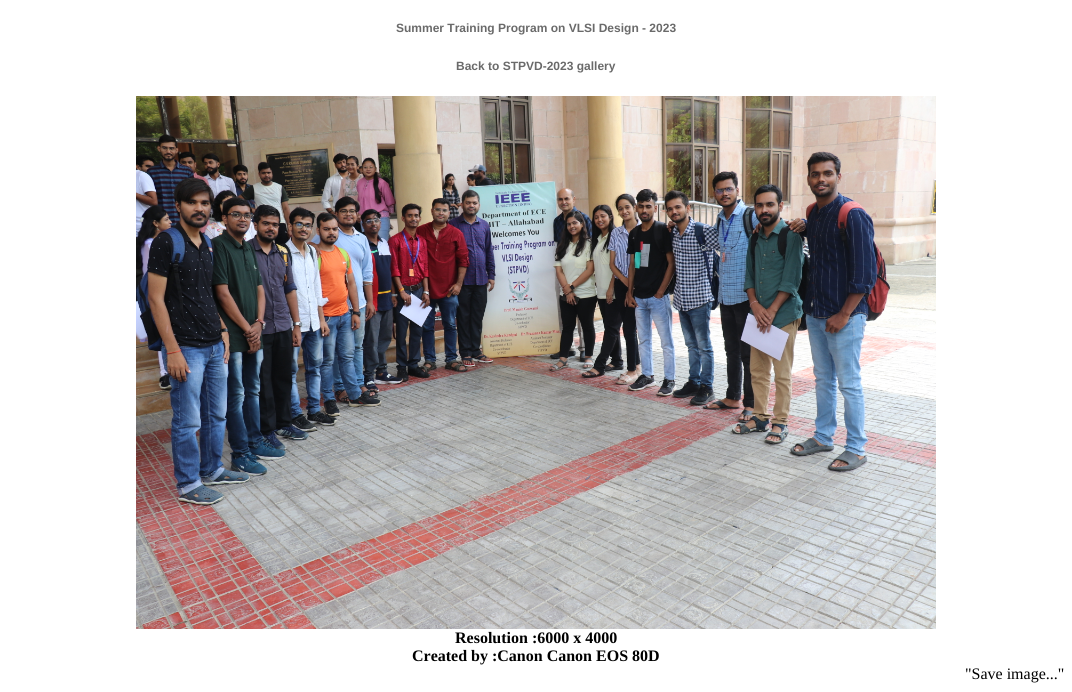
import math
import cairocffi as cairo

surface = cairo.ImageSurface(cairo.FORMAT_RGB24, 1072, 692)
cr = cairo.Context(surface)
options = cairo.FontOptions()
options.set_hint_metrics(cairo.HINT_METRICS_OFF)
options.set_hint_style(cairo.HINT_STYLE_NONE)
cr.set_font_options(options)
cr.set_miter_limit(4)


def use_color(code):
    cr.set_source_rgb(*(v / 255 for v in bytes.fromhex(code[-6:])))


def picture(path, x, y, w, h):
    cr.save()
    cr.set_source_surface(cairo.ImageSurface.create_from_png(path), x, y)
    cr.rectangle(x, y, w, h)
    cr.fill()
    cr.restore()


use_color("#ffffff")
cr.paint()
cr.select_font_face("Liberation Sans", cairo.FONT_SLANT_NORMAL, cairo.FONT_WEIGHT_BOLD)
cr.set_font_size(12)
use_color("#6a6a6a")
cr.move_to(396, 32)
cr.show_text("Summer Training Program on VLSI Design - 2023")
cr.move_to(456, 70)
cr.show_text("Back to STPVD-2023 gallery")
picture("img1.png", 136, 96, 800, 533)
cr.select_font_face("Liberation Serif", cairo.FONT_SLANT_NORMAL, cairo.FONT_WEIGHT_BOLD)
cr.set_font_size(16)
use_color("#000000")
cr.move_to(455, 643)
cr.show_text("Resolution :6000 x 4000")
cr.move_to(412, 661)
cr.show_text("Created by :Canon Canon EOS 80D")
cr.select_font_face("Liberation Serif")
cr.move_to(965, 679)
cr.show_text("\"Save image...\"")
surface.write_to_png("result.png")
